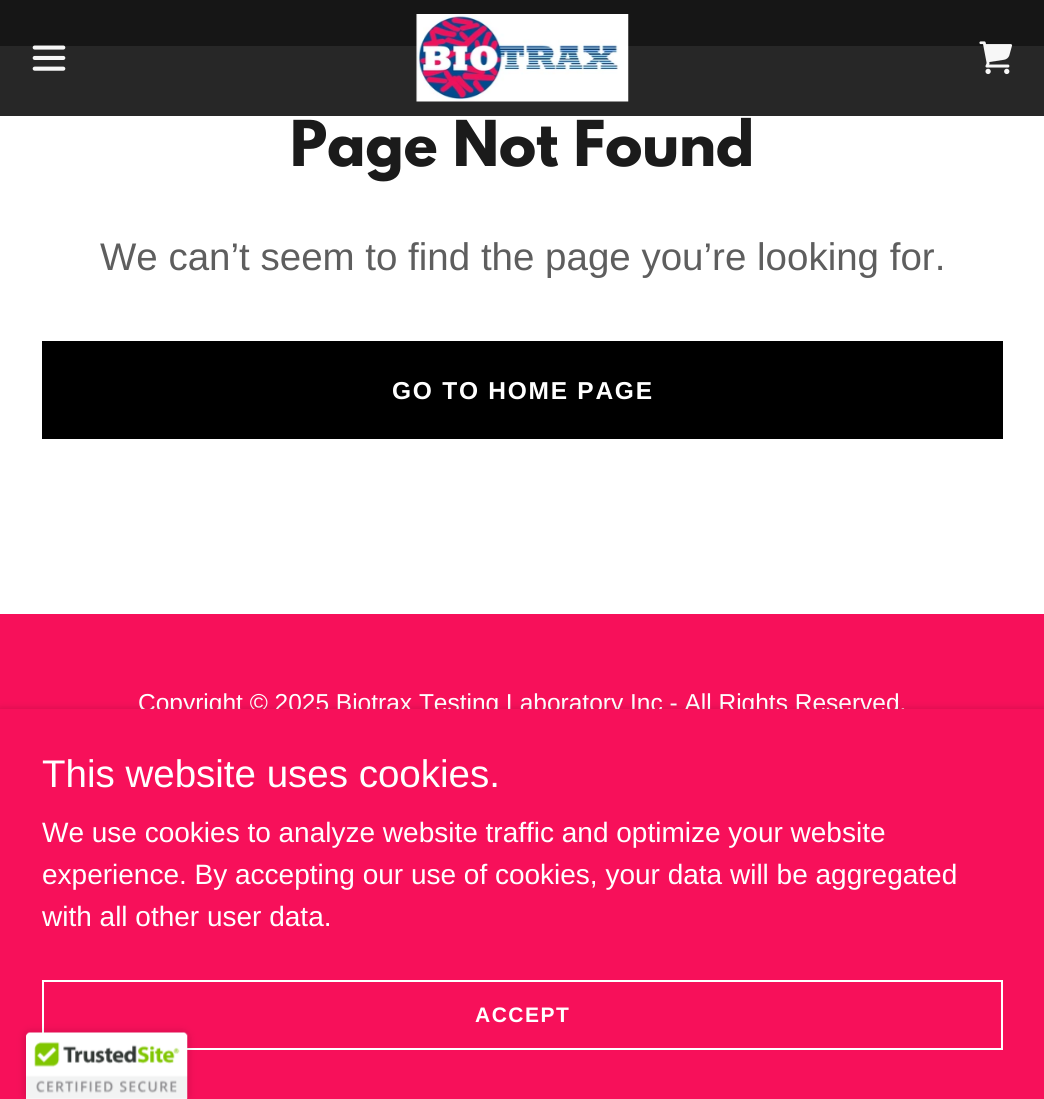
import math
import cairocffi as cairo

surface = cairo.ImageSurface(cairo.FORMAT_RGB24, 1044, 1099)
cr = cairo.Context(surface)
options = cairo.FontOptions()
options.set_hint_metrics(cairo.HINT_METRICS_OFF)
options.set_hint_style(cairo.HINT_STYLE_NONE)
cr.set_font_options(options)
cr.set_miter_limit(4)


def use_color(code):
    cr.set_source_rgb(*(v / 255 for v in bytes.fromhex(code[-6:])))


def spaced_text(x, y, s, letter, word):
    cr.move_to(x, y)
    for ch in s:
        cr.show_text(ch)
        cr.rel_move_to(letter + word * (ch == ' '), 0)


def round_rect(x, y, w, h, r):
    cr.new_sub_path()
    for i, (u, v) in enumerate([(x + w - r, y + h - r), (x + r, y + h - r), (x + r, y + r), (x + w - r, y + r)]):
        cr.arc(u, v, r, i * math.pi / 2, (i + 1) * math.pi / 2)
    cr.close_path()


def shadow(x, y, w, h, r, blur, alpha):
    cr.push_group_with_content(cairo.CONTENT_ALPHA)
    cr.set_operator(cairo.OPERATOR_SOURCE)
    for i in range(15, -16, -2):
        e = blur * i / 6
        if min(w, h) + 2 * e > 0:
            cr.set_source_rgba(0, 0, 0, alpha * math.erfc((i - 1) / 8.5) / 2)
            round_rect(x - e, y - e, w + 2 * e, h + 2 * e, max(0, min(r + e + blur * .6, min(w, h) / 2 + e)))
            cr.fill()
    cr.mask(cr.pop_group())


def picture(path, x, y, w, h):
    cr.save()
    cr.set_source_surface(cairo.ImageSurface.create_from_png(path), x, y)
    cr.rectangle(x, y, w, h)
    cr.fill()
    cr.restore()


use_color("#f7105a")
cr.paint()
use_color("#161616")
cr.rectangle(0, 0, 1044, 46)
cr.fill()
use_color("#272727")
cr.rectangle(0, 46, 1044, 70)
cr.fill()
picture("img1.png", 32, 45, 34, 26)
picture("img2.png", 416, 14, 213, 88)
picture("img3.png", 979, 41, 34, 34)
use_color("#ffffff")
cr.rectangle(0, 116, 1044, 498)
cr.fill()
cr.select_font_face("League Spartan", cairo.FONT_SLANT_NORMAL, cairo.FONT_WEIGHT_BOLD)
cr.set_font_size(56)
use_color("#1b1b1b")
cr.move_to(290, 166)
cr.show_text("Page Not Found")
cr.select_font_face("Liberation Sans")
cr.set_font_size(38.5)
use_color("#5e5e5e")
cr.move_to(100, 270)
cr.show_text("We can’t seem to find the page you’re looking for.")
use_color("#000000")
cr.rectangle(42, 341, 961, 98)
cr.fill()
cr.select_font_face("Liberation Sans", cairo.FONT_SLANT_NORMAL, cairo.FONT_WEIGHT_BOLD)
cr.set_font_size(24.5)
use_color("#ffffff")
spaced_text(392, 399, "GO TO HOME PAGE", 1.75, 0)
cr.select_font_face("Liberation Sans")
cr.move_to(138, 711)
cr.show_text("Copyright © 2025 Biotrax Testing Laboratory Inc - All Rights Reserved.")
use_color("#000000")
shadow(0, 712, 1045, 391, 0, 5, 0.3)
use_color("#f7105a")
cr.rectangle(0, 709, 1044, 390)
cr.fill()
cr.set_font_size(38.5)
use_color("#ffffff")
cr.move_to(42, 787)
cr.show_text("This website uses cookies.")
cr.set_font_size(28)
cr.move_to(42, 842)
cr.show_text("We use cookies to analyze website traffic and optimize your website")
cr.move_to(42, 884)
cr.show_text("experience. By accepting our use of cookies, your data will be aggregated")
cr.move_to(42, 926)
cr.show_text("with all other user data.")
cr.rectangle(43, 981, 959, 68)
cr.stroke()
cr.select_font_face("Liberation Sans", cairo.FONT_SLANT_NORMAL, cairo.FONT_WEIGHT_BOLD)
cr.set_font_size(21)
spaced_text(475, 1022, "ACCEPT", 1.5, 0)
use_color("#000000")
shadow(26, 1033, 161, 66, 4, 4.5, 0.2)
use_color("#ffffff")
cr.new_path()
cr.move_to(30, 1033)
cr.line_to(183, 1033)
cr.curve_to(185, 1033, 187, 1035, 187, 1037)
cr.line_to(187, 1099)
cr.line_to(26, 1099)
cr.line_to(26, 1037)
cr.curve_to(26, 1035, 28, 1033, 30, 1033)
cr.close_path()
cr.fill()
picture("img4.png", 26, 1032, 162, 67)
surface.write_to_png("result.png")
